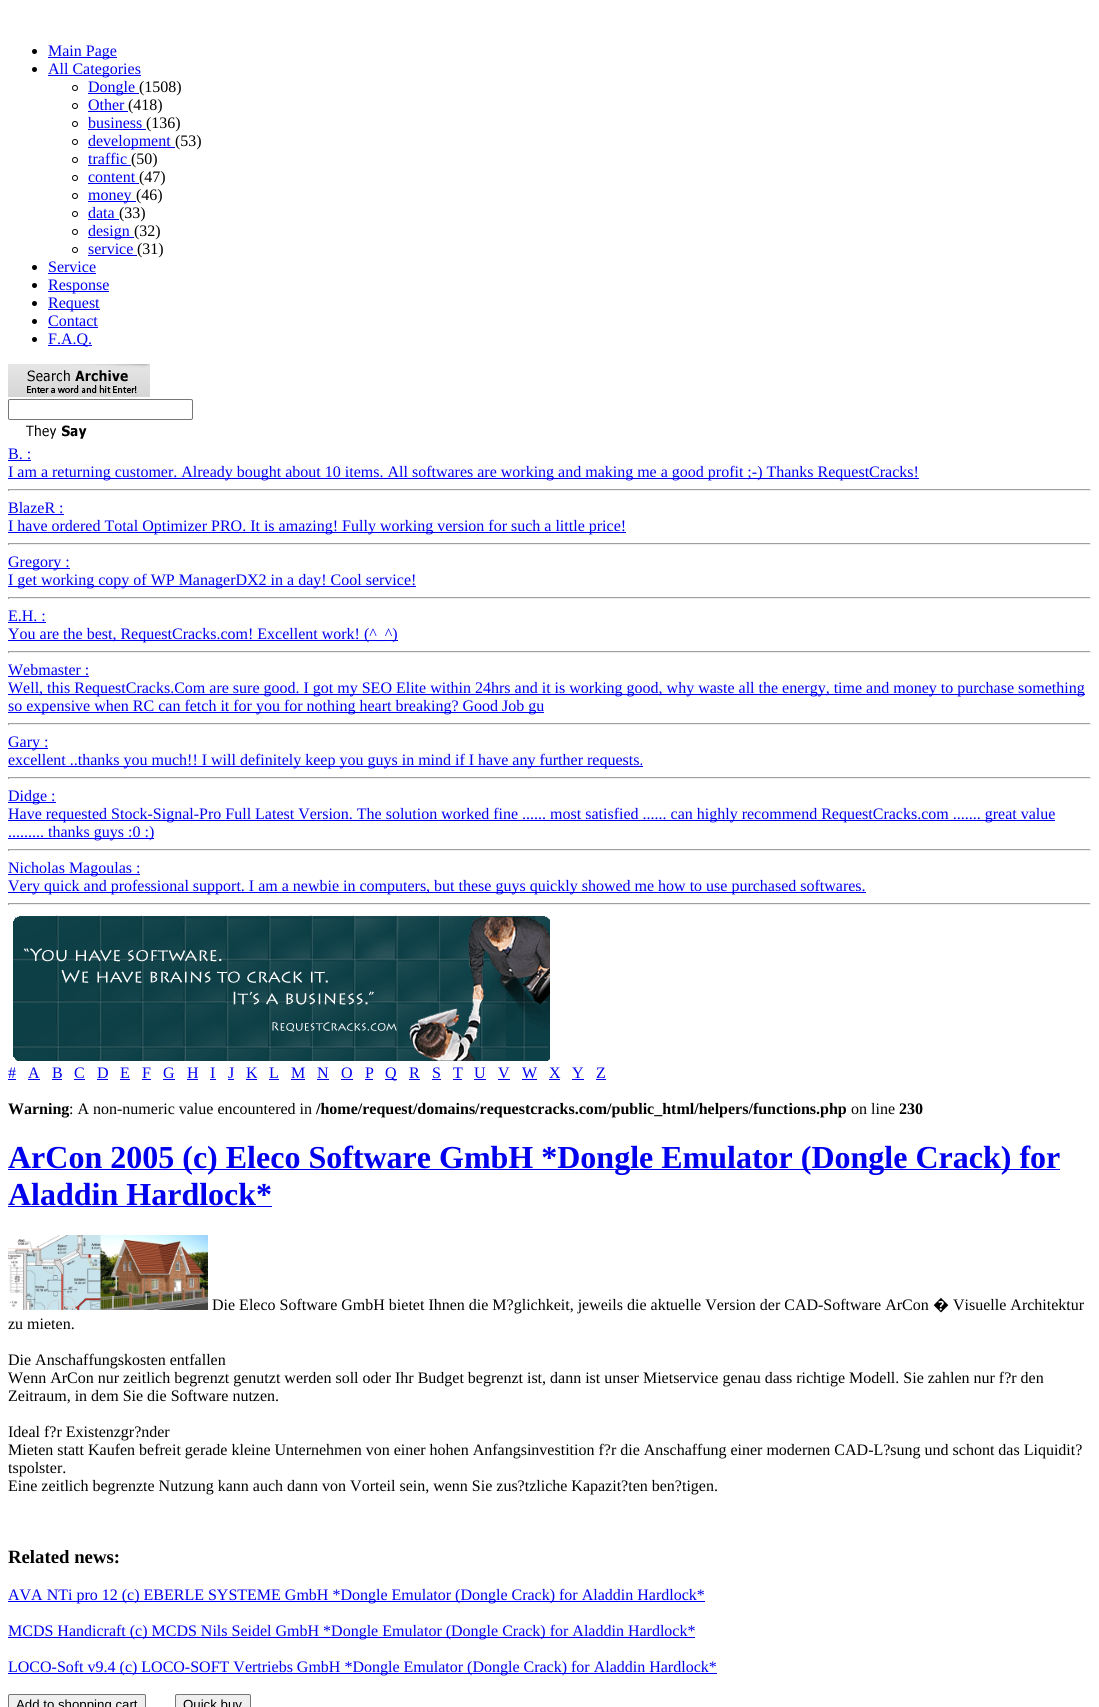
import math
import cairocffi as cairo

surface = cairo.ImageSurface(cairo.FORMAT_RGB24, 1099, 1707)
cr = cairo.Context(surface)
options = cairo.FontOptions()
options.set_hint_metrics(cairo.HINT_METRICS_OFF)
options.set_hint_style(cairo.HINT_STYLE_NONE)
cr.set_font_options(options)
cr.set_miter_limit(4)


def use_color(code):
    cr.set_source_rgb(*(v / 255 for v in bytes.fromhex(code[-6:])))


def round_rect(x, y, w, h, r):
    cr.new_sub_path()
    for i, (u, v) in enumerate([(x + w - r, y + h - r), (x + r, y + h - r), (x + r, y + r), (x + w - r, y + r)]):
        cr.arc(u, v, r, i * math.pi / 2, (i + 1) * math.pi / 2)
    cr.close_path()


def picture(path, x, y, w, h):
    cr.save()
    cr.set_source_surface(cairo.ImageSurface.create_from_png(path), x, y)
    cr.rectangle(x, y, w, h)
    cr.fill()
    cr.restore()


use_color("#ffffff")
cr.paint()
use_color("#000000")
cr.arc(34.5, 51.5, 2.5, 0, 2 * math.pi)
cr.fill()
use_color("#0000ee")
cr.rectangle(48, 57, 69, 1)
cr.fill()
cr.select_font_face("Liberation Serif")
cr.set_font_size(16)
cr.move_to(48, 56)
cr.show_text("Main Page")
use_color("#000000")
cr.new_path()
cr.arc(34.5, 69.5, 2.5, 0, 2 * math.pi)
cr.fill()
use_color("#0000ee")
cr.rectangle(48, 75, 93, 1)
cr.fill()
cr.move_to(48, 74)
cr.show_text("All Categories")
cr.new_path()
cr.arc(75, 88, 2.5, 0, 2 * math.pi)
use_color("#000000")
cr.set_line_width(1)
cr.stroke()
use_color("#0000ee")
cr.rectangle(88, 93, 51, 1)
cr.fill()
cr.move_to(88, 92)
cr.show_text("Dongle")
use_color("#000000")
cr.move_to(139, 92)
cr.show_text("(1508)")
cr.new_path()
cr.arc(75, 106, 2.5, 0, 2 * math.pi)
cr.stroke()
use_color("#0000ee")
cr.move_to(88, 110)
cr.show_text("Other")
cr.rectangle(88, 111, 40, 1)
cr.fill()
use_color("#000000")
cr.move_to(128, 110)
cr.show_text("(418)")
cr.new_path()
cr.arc(75, 124, 2.5, 0, 2 * math.pi)
cr.stroke()
use_color("#0000ee")
cr.move_to(88, 128)
cr.show_text("business")
cr.rectangle(88, 129, 58, 1)
cr.fill()
use_color("#000000")
cr.move_to(146, 128)
cr.show_text("(136)")
cr.new_path()
cr.arc(75, 142, 2.5, 0, 2 * math.pi)
cr.stroke()
use_color("#0000ee")
cr.rectangle(88, 147, 87, 1)
cr.fill()
cr.move_to(88, 146)
cr.show_text("development")
use_color("#000000")
cr.move_to(175, 146)
cr.show_text("(53)")
cr.new_path()
cr.arc(75, 160, 2.5, 0, 2 * math.pi)
cr.stroke()
use_color("#0000ee")
cr.move_to(88, 164)
cr.show_text("traffic")
cr.rectangle(88, 165, 43, 1)
cr.fill()
use_color("#000000")
cr.move_to(131, 164)
cr.show_text("(50)")
cr.new_path()
cr.arc(75, 178, 2.5, 0, 2 * math.pi)
cr.stroke()
use_color("#0000ee")
cr.move_to(88, 182)
cr.show_text("content")
cr.rectangle(88, 183, 51, 1)
cr.fill()
use_color("#000000")
cr.move_to(139, 182)
cr.show_text("(47)")
cr.new_path()
cr.arc(75, 196, 2.5, 0, 2 * math.pi)
cr.stroke()
use_color("#0000ee")
cr.rectangle(88, 201, 48, 1)
cr.fill()
cr.move_to(88, 200)
cr.show_text("money")
use_color("#000000")
cr.move_to(136, 200)
cr.show_text("(46)")
cr.new_path()
cr.arc(75, 214, 2.5, 0, 2 * math.pi)
cr.stroke()
use_color("#0000ee")
cr.move_to(88, 218)
cr.show_text("data")
cr.rectangle(88, 219, 31, 1)
cr.fill()
use_color("#000000")
cr.move_to(119, 218)
cr.show_text("(33)")
cr.new_path()
cr.arc(75, 232, 2.5, 0, 2 * math.pi)
cr.stroke()
use_color("#0000ee")
cr.rectangle(88, 237, 46, 1)
cr.fill()
cr.move_to(88, 236)
cr.show_text("design")
use_color("#000000")
cr.move_to(134, 236)
cr.show_text("(32)")
cr.new_path()
cr.arc(75, 250, 2.5, 0, 2 * math.pi)
cr.stroke()
use_color("#0000ee")
cr.move_to(88, 254)
cr.show_text("service")
cr.rectangle(88, 255, 49, 1)
cr.fill()
use_color("#000000")
cr.move_to(137, 254)
cr.show_text("(31)")
cr.new_path()
cr.arc(34.5, 267.5, 2.5, 0, 2 * math.pi)
cr.fill()
use_color("#0000ee")
cr.move_to(48, 272)
cr.show_text("Service")
cr.rectangle(48, 273, 48, 1)
cr.fill()
use_color("#000000")
cr.arc(34.5, 285.5, 2.5, 0, 2 * math.pi)
cr.fill()
use_color("#0000ee")
cr.rectangle(48, 291, 61, 1)
cr.fill()
cr.move_to(48, 290)
cr.show_text("Response")
use_color("#000000")
cr.new_path()
cr.arc(34.5, 303.5, 2.5, 0, 2 * math.pi)
cr.fill()
use_color("#0000ee")
cr.rectangle(48, 309, 52, 1)
cr.fill()
cr.move_to(48, 308)
cr.show_text("Request")
use_color("#000000")
cr.new_path()
cr.arc(34.5, 321.5, 2.5, 0, 2 * math.pi)
cr.fill()
use_color("#0000ee")
cr.move_to(48, 326)
cr.show_text("Contact")
cr.rectangle(48, 327, 50, 1)
cr.fill()
use_color("#000000")
cr.arc(34.5, 339.5, 2.5, 0, 2 * math.pi)
cr.fill()
use_color("#0000ee")
cr.rectangle(48, 345, 44, 1)
cr.fill()
cr.move_to(48, 344)
cr.show_text("F.A.Q.")
picture("img1.png", 8, 364, 142, 33)
round_rect(8.5, 399.5, 184, 20, 1.5)
use_color("#767676")
cr.stroke()
picture("img2.png", 26, 425, 61, 14)
use_color("#0000ee")
cr.move_to(8, 459)
cr.show_text("B. :")
cr.rectangle(8, 460, 23, 1)
cr.fill()
cr.rectangle(8, 478, 911, 1)
cr.fill()
cr.move_to(8, 477)
cr.show_text("I am a returning customer. Already bought about 10 items. All softwares are working and making me a good profit ;-) Thanks RequestCracks!")
use_color("#9f9f9f")
cr.rectangle(8, 489, 1083, 1)
cr.fill()
use_color("#eeeeee")
cr.rectangle(1090, 489, 1, 2)
cr.fill()
cr.rectangle(8, 490, 1083, 1)
cr.fill()
use_color("#9f9f9f")
cr.rectangle(8, 489, 1, 2)
cr.fill()
use_color("#0000ee")
cr.move_to(8, 513)
cr.show_text("BlazeR :")
cr.rectangle(8, 514, 56, 1)
cr.fill()
cr.rectangle(8, 532, 618, 1)
cr.fill()
cr.move_to(8, 531)
cr.show_text("I have ordered Total Optimizer PRO. It is amazing! Fully working version for such a little price!")
use_color("#9f9f9f")
cr.rectangle(8, 543, 1083, 1)
cr.fill()
use_color("#eeeeee")
cr.rectangle(1090, 543, 1, 2)
cr.fill()
cr.rectangle(8, 544, 1083, 1)
cr.fill()
use_color("#9f9f9f")
cr.rectangle(8, 543, 1, 2)
cr.fill()
use_color("#0000ee")
cr.rectangle(8, 568, 62, 1)
cr.fill()
cr.move_to(8, 567)
cr.show_text("Gregory :")
cr.rectangle(8, 586, 408, 1)
cr.fill()
cr.move_to(8, 585)
cr.show_text("I get working copy of WP ManagerDX2 in a day! Cool service!")
use_color("#9f9f9f")
cr.rectangle(8, 597, 1083, 1)
cr.fill()
use_color("#eeeeee")
cr.rectangle(1090, 597, 1, 2)
cr.fill()
cr.rectangle(8, 598, 1083, 1)
cr.fill()
use_color("#9f9f9f")
cr.rectangle(8, 597, 1, 2)
cr.fill()
use_color("#0000ee")
cr.move_to(8, 621)
cr.show_text("E.H. :")
cr.rectangle(8, 622, 38, 1)
cr.fill()
cr.rectangle(8, 640, 390, 1)
cr.fill()
cr.move_to(8, 639)
cr.show_text("You are the best, RequestCracks.com! Excellent work! (^_^)")
use_color("#9f9f9f")
cr.rectangle(8, 651, 1083, 1)
cr.fill()
use_color("#eeeeee")
cr.rectangle(1090, 651, 1, 2)
cr.fill()
cr.rectangle(8, 652, 1083, 1)
cr.fill()
use_color("#9f9f9f")
cr.rectangle(8, 651, 1, 2)
cr.fill()
use_color("#0000ee")
cr.move_to(8, 675)
cr.show_text("Webmaster :")
cr.rectangle(8, 676, 81, 1)
cr.fill()
cr.rectangle(8, 694, 1077, 1)
cr.fill()
cr.move_to(8, 693)
cr.show_text("Well, this RequestCracks.Com are sure good. I got my SEO Elite within 24hrs and it is working good, why waste all the energy, time and money to purchase something")
cr.rectangle(8, 712, 536, 1)
cr.fill()
cr.move_to(8, 711)
cr.show_text("so expensive when RC can fetch it for you for nothing heart breaking? Good Job gu")
use_color("#9f9f9f")
cr.rectangle(8, 723, 1083, 1)
cr.fill()
use_color("#eeeeee")
cr.rectangle(1090, 723, 1, 2)
cr.fill()
cr.rectangle(8, 724, 1083, 1)
cr.fill()
use_color("#9f9f9f")
cr.rectangle(8, 723, 1, 2)
cr.fill()
use_color("#0000ee")
cr.rectangle(8, 748, 40, 1)
cr.fill()
cr.move_to(8, 747)
cr.show_text("Gary :")
cr.rectangle(8, 766, 635, 1)
cr.fill()
cr.move_to(8, 765)
cr.show_text("excellent ..thanks you much!! I will definitely keep you guys in mind if I have any further requests.")
use_color("#9f9f9f")
cr.rectangle(8, 777, 1083, 1)
cr.fill()
use_color("#eeeeee")
cr.rectangle(1090, 777, 1, 2)
cr.fill()
cr.rectangle(8, 778, 1083, 1)
cr.fill()
use_color("#9f9f9f")
cr.rectangle(8, 777, 1, 2)
cr.fill()
use_color("#0000ee")
cr.rectangle(8, 802, 48, 1)
cr.fill()
cr.move_to(8, 801)
cr.show_text("Didge :")
cr.rectangle(8, 820, 1047, 1)
cr.fill()
cr.move_to(8, 819)
cr.show_text("Have requested Stock-Signal-Pro Full Latest Version. The solution worked fine ...... most satisfied ...... can highly recommend RequestCracks.com ....... great value")
cr.rectangle(8, 838, 146, 1)
cr.fill()
cr.move_to(8, 837)
cr.show_text("......... thanks guys :0 :)")
use_color("#9f9f9f")
cr.rectangle(8, 849, 1083, 1)
cr.fill()
use_color("#eeeeee")
cr.rectangle(1090, 849, 1, 2)
cr.fill()
cr.rectangle(8, 850, 1083, 1)
cr.fill()
use_color("#9f9f9f")
cr.rectangle(8, 849, 1, 2)
cr.fill()
use_color("#0000ee")
cr.rectangle(8, 874, 132, 1)
cr.fill()
cr.move_to(8, 873)
cr.show_text("Nicholas Magoulas :")
cr.rectangle(8, 892, 858, 1)
cr.fill()
cr.move_to(8, 891)
cr.show_text("Very quick and professional support. I am a newbie in computers, but these guys quickly showed me how to use purchased softwares.")
use_color("#9f9f9f")
cr.rectangle(8, 903, 1083, 1)
cr.fill()
use_color("#eeeeee")
cr.rectangle(1090, 903, 1, 2)
cr.fill()
cr.rectangle(8, 904, 1083, 1)
cr.fill()
use_color("#9f9f9f")
cr.rectangle(8, 903, 1, 2)
cr.fill()
picture("img3.png", 12, 915, 538, 147)
use_color("#0000ee")
cr.move_to(8, 1078)
cr.show_text("#")
cr.rectangle(8, 1079, 8, 1)
cr.fill()
cr.move_to(28, 1078)
cr.show_text("A")
cr.rectangle(28, 1079, 12, 1)
cr.fill()
cr.move_to(52, 1078)
cr.show_text("B")
cr.rectangle(52, 1079, 10, 1)
cr.fill()
cr.move_to(74, 1078)
cr.show_text("C")
cr.rectangle(74, 1079, 11, 1)
cr.fill()
cr.move_to(97, 1078)
cr.show_text("D")
cr.rectangle(97, 1079, 11, 1)
cr.fill()
cr.move_to(120, 1078)
cr.show_text("E")
cr.rectangle(120, 1079, 10, 1)
cr.fill()
cr.move_to(142, 1078)
cr.show_text("F")
cr.rectangle(142, 1079, 9, 1)
cr.fill()
cr.move_to(163, 1078)
cr.show_text("G")
cr.rectangle(163, 1079, 12, 1)
cr.fill()
cr.move_to(187, 1078)
cr.show_text("H")
cr.rectangle(187, 1079, 11, 1)
cr.fill()
cr.move_to(210, 1078)
cr.show_text("I")
cr.rectangle(210, 1079, 6, 1)
cr.fill()
cr.move_to(228, 1078)
cr.show_text("J")
cr.rectangle(228, 1079, 6, 1)
cr.fill()
cr.move_to(246, 1078)
cr.show_text("K")
cr.rectangle(246, 1079, 11, 1)
cr.fill()
cr.move_to(269, 1078)
cr.show_text("L")
cr.rectangle(269, 1079, 10, 1)
cr.fill()
cr.move_to(291, 1078)
cr.show_text("M")
cr.rectangle(291, 1079, 14, 1)
cr.fill()
cr.move_to(317, 1078)
cr.show_text("N")
cr.rectangle(317, 1079, 12, 1)
cr.fill()
cr.move_to(341, 1078)
cr.show_text("O")
cr.rectangle(341, 1079, 12, 1)
cr.fill()
cr.move_to(365, 1078)
cr.show_text("P")
cr.rectangle(365, 1079, 8, 1)
cr.fill()
cr.rectangle(385, 1079, 12, 1)
cr.fill()
cr.move_to(385, 1078)
cr.show_text("Q")
cr.move_to(409, 1078)
cr.show_text("R")
cr.rectangle(409, 1079, 11, 1)
cr.fill()
cr.move_to(432, 1078)
cr.show_text("S")
cr.rectangle(432, 1079, 9, 1)
cr.fill()
cr.move_to(453, 1078)
cr.show_text("T")
cr.rectangle(453, 1079, 9, 1)
cr.fill()
cr.move_to(474, 1078)
cr.show_text("U")
cr.rectangle(474, 1079, 12, 1)
cr.fill()
cr.move_to(498, 1078)
cr.show_text("V")
cr.rectangle(498, 1079, 12, 1)
cr.fill()
cr.move_to(522, 1078)
cr.show_text("W")
cr.rectangle(522, 1079, 15, 1)
cr.fill()
cr.move_to(549, 1078)
cr.show_text("X")
cr.rectangle(549, 1079, 11, 1)
cr.fill()
cr.move_to(572, 1078)
cr.show_text("Y")
cr.rectangle(572, 1079, 12, 1)
cr.fill()
cr.move_to(596, 1078)
cr.show_text("Z")
cr.rectangle(596, 1079, 10, 1)
cr.fill()
cr.select_font_face("Liberation Serif", cairo.FONT_SLANT_NORMAL, cairo.FONT_WEIGHT_BOLD)
use_color("#000000")
cr.move_to(8, 1114)
cr.show_text("Warning")
cr.select_font_face("Liberation Serif")
cr.move_to(69, 1114)
cr.show_text(": A non-numeric value encountered in")
cr.select_font_face("Liberation Serif", cairo.FONT_SLANT_NORMAL, cairo.FONT_WEIGHT_BOLD)
cr.move_to(316, 1114)
cr.show_text("/home/request/domains/requestcracks.com/public_html/helpers/functions.php")
cr.select_font_face("Liberation Serif")
cr.move_to(851, 1114)
cr.show_text("on line")
cr.select_font_face("Liberation Serif", cairo.FONT_SLANT_NORMAL, cairo.FONT_WEIGHT_BOLD)
cr.move_to(899, 1114)
cr.show_text("230")
use_color("#0000ee")
cr.rectangle(8, 1169, 1052, 1)
cr.fill()
cr.set_font_size(32)
cr.move_to(8, 1168)
cr.show_text("ArCon 2005 (c) Eleco Software GmbH *Dongle Emulator (Dongle Crack) for")
cr.move_to(8, 1205)
cr.show_text("Aladdin Hardlock*")
cr.rectangle(8, 1206, 264, 1)
cr.fill()
picture("img4.png", 8, 1235, 200, 75)
cr.select_font_face("Liberation Serif")
cr.set_font_size(16)
use_color("#000000")
cr.move_to(212, 1310)
cr.show_text("Die Eleco Software GmbH bietet Ihnen die M?glichkeit, jeweils die aktuelle Version der CAD-Software ArCon")
cr.select_font_face("Noto Sans")
cr.move_to(933, 1310)
cr.show_text("�")
cr.select_font_face("Liberation Serif")
cr.move_to(953, 1310)
cr.show_text("Visuelle Architektur")
cr.move_to(8, 1329)
cr.show_text("zu mieten.")
cr.move_to(8, 1365)
cr.show_text("Die Anschaffungskosten entfallen")
cr.move_to(8, 1383)
cr.show_text("Wenn ArCon nur zeitlich begrenzt genutzt werden soll oder Ihr Budget begrenzt ist, dann ist unser Mietservice genau dass richtige Modell. Sie zahlen nur f?r den")
cr.move_to(8, 1401)
cr.show_text("Zeitraum, in dem Sie die Software nutzen.")
cr.move_to(8, 1437)
cr.show_text("Ideal f?r Existenzgr?nder")
cr.move_to(8, 1455)
cr.show_text("Mieten statt Kaufen befreit gerade kleine Unternehmen von einer hohen Anfangsinvestition f?r die Anschaffung einer modernen CAD-L?sung und schont das Liquidit?")
cr.move_to(8, 1473)
cr.show_text("tspolster.")
cr.move_to(8, 1491)
cr.show_text("Eine zeitlich begrenzte Nutzung kann auch dann von Vorteil sein, wenn Sie zus?tzliche Kapazit?ten ben?tigen.")
cr.select_font_face("Liberation Serif", cairo.FONT_SLANT_NORMAL, cairo.FONT_WEIGHT_BOLD)
cr.set_font_size(18.75)
cr.move_to(8, 1563)
cr.show_text("Related news:")
use_color("#0000ee")
cr.rectangle(8, 1601, 697, 1)
cr.fill()
cr.select_font_face("Liberation Serif")
cr.set_font_size(16)
cr.move_to(8, 1600)
cr.show_text("AVA NTi pro 12 (c) EBERLE SYSTEME GmbH *Dongle Emulator (Dongle Crack) for Aladdin Hardlock*")
cr.rectangle(8, 1637, 687, 1)
cr.fill()
cr.move_to(8, 1636)
cr.show_text("MCDS Handicraft (c) MCDS Nils Seidel GmbH *Dongle Emulator (Dongle Crack) for Aladdin Hardlock*")
cr.rectangle(8, 1673, 709, 1)
cr.fill()
cr.move_to(8, 1672)
cr.show_text("LOCO-Soft v9.4 (c) LOCO-SOFT Vertriebs GmbH *Dongle Emulator (Dongle Crack) for Aladdin Hardlock*")
use_color("#efefef")
round_rect(8.5, 1694.5, 137, 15, 1.5)
cr.fill_preserve()
use_color("#767676")
cr.stroke()
cr.select_font_face("Liberation Sans")
cr.set_font_size(13.25)
use_color("#000000")
cr.move_to(16, 1709)
cr.show_text("Add to shopping cart")
use_color("#efefef")
round_rect(175.5, 1694.5, 75, 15, 1.5)
cr.fill_preserve()
use_color("#767676")
cr.stroke()
use_color("#000000")
cr.move_to(183, 1709)
cr.show_text("Quick buy")
surface.write_to_png("result.png")
